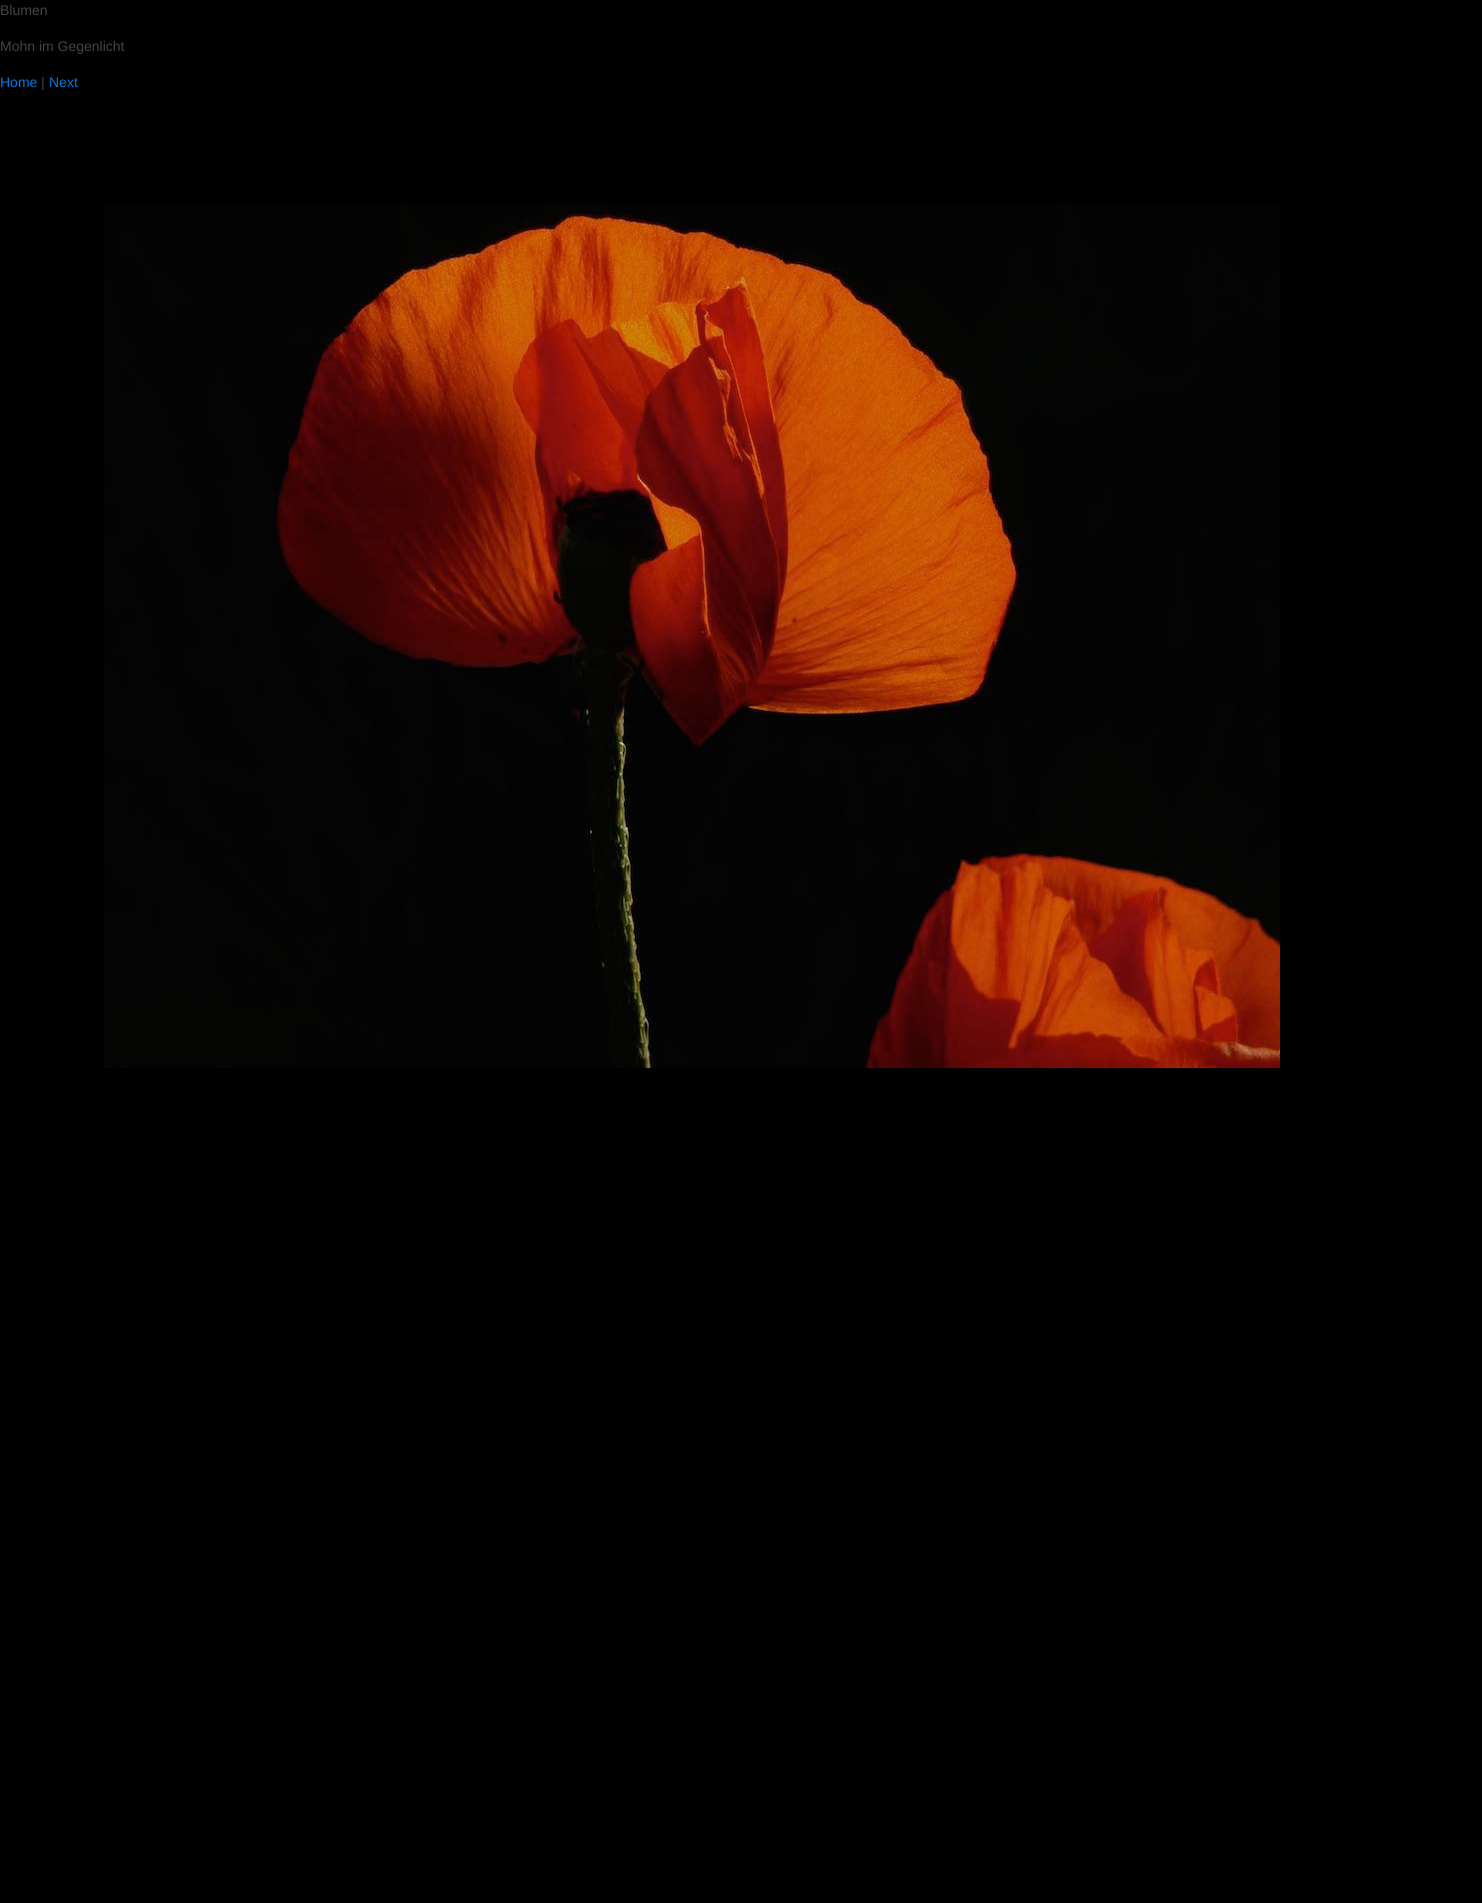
import math
import cairocffi as cairo

surface = cairo.ImageSurface(cairo.FORMAT_RGB24, 1482, 1903)
cr = cairo.Context(surface)
options = cairo.FontOptions()
options.set_hint_metrics(cairo.HINT_METRICS_OFF)
options.set_hint_style(cairo.HINT_STYLE_NONE)
cr.set_font_options(options)
cr.set_miter_limit(4)


def use_color(code):
    cr.set_source_rgb(*(v / 255 for v in bytes.fromhex(code[-6:])))


def picture(path, x, y, w, h):
    cr.save()
    cr.set_source_surface(cairo.ImageSurface.create_from_png(path), x, y)
    cr.rectangle(x, y, w, h)
    cr.fill()
    cr.restore()


use_color("#000000")
cr.paint()
cr.select_font_face("Liberation Sans")
cr.set_font_size(14)
use_color("#444444")
cr.move_to(0, 15)
cr.show_text("Blumen")
cr.move_to(0, 51)
cr.show_text("Mohn im Gegenlicht")
use_color("#0077dd")
cr.move_to(0, 87)
cr.show_text("Home")
use_color("#444444")
cr.move_to(41, 87)
cr.show_text("|")
use_color("#0077dd")
cr.move_to(49, 87)
cr.show_text("Next")
picture("img1.png", 104, 203, 1176, 865)
surface.write_to_png("result.png")
